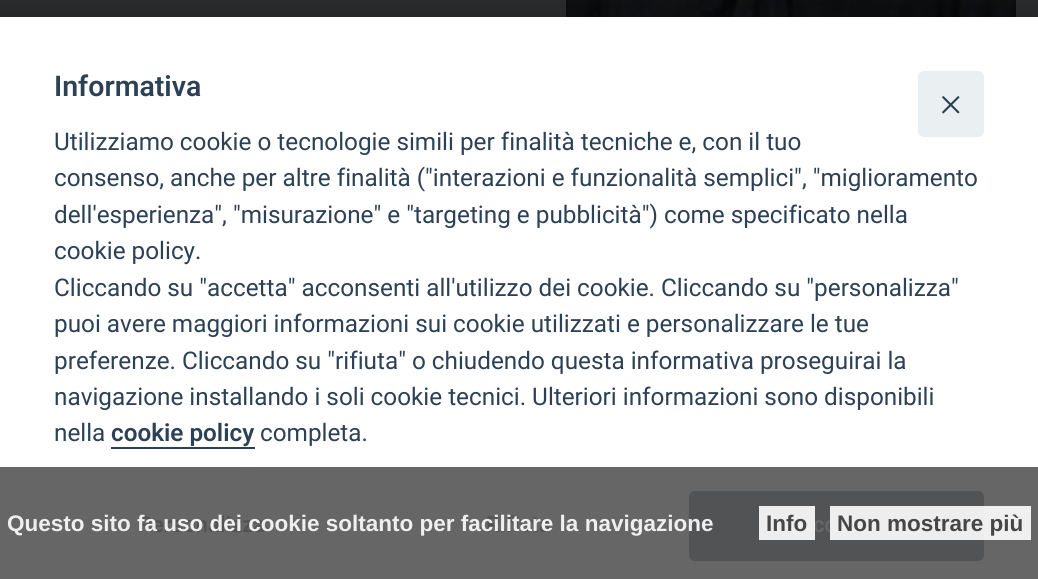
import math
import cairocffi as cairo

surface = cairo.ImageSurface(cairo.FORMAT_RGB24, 1038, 579)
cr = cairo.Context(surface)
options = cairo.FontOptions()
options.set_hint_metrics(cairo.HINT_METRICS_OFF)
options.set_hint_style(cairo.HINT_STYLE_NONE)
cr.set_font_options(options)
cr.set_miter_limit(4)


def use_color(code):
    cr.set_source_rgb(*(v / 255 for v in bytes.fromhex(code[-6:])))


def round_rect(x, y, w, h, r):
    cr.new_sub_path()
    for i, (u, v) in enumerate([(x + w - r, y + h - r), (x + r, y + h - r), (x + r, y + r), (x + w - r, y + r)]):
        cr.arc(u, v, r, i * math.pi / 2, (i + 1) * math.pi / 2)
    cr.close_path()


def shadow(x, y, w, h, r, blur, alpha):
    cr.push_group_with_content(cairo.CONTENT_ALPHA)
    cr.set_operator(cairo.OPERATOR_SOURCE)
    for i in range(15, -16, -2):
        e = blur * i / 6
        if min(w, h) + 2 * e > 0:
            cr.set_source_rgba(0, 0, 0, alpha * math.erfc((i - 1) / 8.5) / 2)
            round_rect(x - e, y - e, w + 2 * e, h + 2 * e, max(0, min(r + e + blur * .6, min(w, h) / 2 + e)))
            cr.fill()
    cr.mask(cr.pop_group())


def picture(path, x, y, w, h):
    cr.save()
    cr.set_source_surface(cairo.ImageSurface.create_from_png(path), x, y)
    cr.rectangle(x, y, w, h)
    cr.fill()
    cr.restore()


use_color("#2a2b2d")
cr.paint()
picture("img1.png", 566, 0, 450, 17)
use_color("#020203")
shadow(0, 33, 1038, 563, 0, 25.5, 0.28)
use_color("#ffffff")
cr.rectangle(0, 17, 1038, 450)
cr.fill()
use_color("#666666")
cr.rectangle(0, 467, 1038, 112)
cr.fill()
use_color("#eaeff2")
round_rect(918, 71, 66, 66, 6)
cr.fill()
use_color("#2d4156")
cr.new_path()
cr.move_to(959, 96.5)
cr.curve_to(959.5, 97, 959.5, 98, 959, 98)
cr.line_to(944, 113)
cr.curve_to(943.5, 113.5, 943, 113.5, 942.5, 113)
cr.curve_to(942, 113, 942, 112, 942.5, 111.5)
cr.line_to(957.5, 96.5)
cr.curve_to(958, 96, 958.5, 96, 959, 96.5)
cr.close_path()
cr.fill()
cr.new_path()
cr.move_to(942.5, 96.5)
cr.curve_to(943, 96, 943.5, 96, 944, 96.5)
cr.line_to(959, 111.5)
cr.curve_to(959.5, 112, 959.5, 113, 959, 113)
cr.curve_to(958.5, 113.5, 958, 113.5, 957.5, 113)
cr.line_to(942.5, 98)
cr.curve_to(942, 98, 942, 97, 942.5, 96.5)
cr.close_path()
cr.fill()
cr.select_font_face("Roboto SemiBold")
cr.set_font_size(28.5)
cr.move_to(54, 96)
cr.show_text("Informativa")
cr.select_font_face("Roboto")
cr.set_font_size(24.3)
cr.move_to(54, 150)
cr.show_text("Utilizziamo cookie o tecnologie simili per finalità tecniche e, con il tuo")
cr.move_to(54, 186)
cr.show_text("consenso, anche per altre finalità (\"interazioni e funzionalità semplici\", \"miglioramento")
cr.move_to(54, 223)
cr.show_text("dell'esperienza\", \"misurazione\" e \"targeting e pubblicità\") come specificato nella")
cr.move_to(54, 259)
cr.show_text("cookie policy.")
cr.move_to(54, 296)
cr.show_text("Cliccando su \"accetta\" acconsenti all'utilizzo dei cookie. Cliccando su \"personalizza\"")
cr.move_to(54, 332)
cr.show_text("puoi avere maggiori informazioni sui cookie utilizzati e personalizzare le tue")
cr.move_to(54, 369)
cr.show_text("preferenze. Cliccando su \"rifiuta\" o chiudendo questa informativa proseguirai la")
cr.move_to(54, 405)
cr.show_text("navigazione installando i soli cookie tecnici. Ulteriori informazioni sono disponibili")
cr.move_to(54, 441)
cr.show_text("nella")
cr.select_font_face("Roboto SemiBold")
cr.move_to(111, 441)
cr.show_text("cookie policy")
cr.rectangle(111, 447, 144, 2)
cr.fill()
cr.select_font_face("Roboto")
cr.move_to(260, 441)
cr.show_text("completa.")
cr.select_font_face("Roboto SemiBold")
cr.set_font_size(22)
use_color("#515355")
cr.move_to(138, 532)
cr.show_text("Personalizza")
cr.move_to(486, 532)
cr.show_text("Rifiuta")
round_rect(689, 491, 295, 70, 6)
cr.fill()
use_color("#666666")
cr.move_to(813, 532)
cr.show_text("cc")
cr.select_font_face("Liberation Sans", cairo.FONT_SLANT_NORMAL, cairo.FONT_WEIGHT_BOLD)
cr.set_font_size(22.5)
use_color("#efefef")
cr.move_to(7, 531)
cr.show_text("Questo sito fa uso dei cookie soltanto per facilitare la navigazione")
cr.set_source_rgba(1, 1, 1, 0.9)
cr.rectangle(759, 506, 56, 34)
cr.fill()
use_color("#464646")
cr.move_to(766, 531)
cr.show_text("Info")
cr.set_source_rgba(1, 1, 1, 0.9)
cr.rectangle(830, 506, 201, 34)
cr.fill()
use_color("#464646")
cr.move_to(837, 531)
cr.show_text("Non mostrare più")
surface.write_to_png("result.png")
